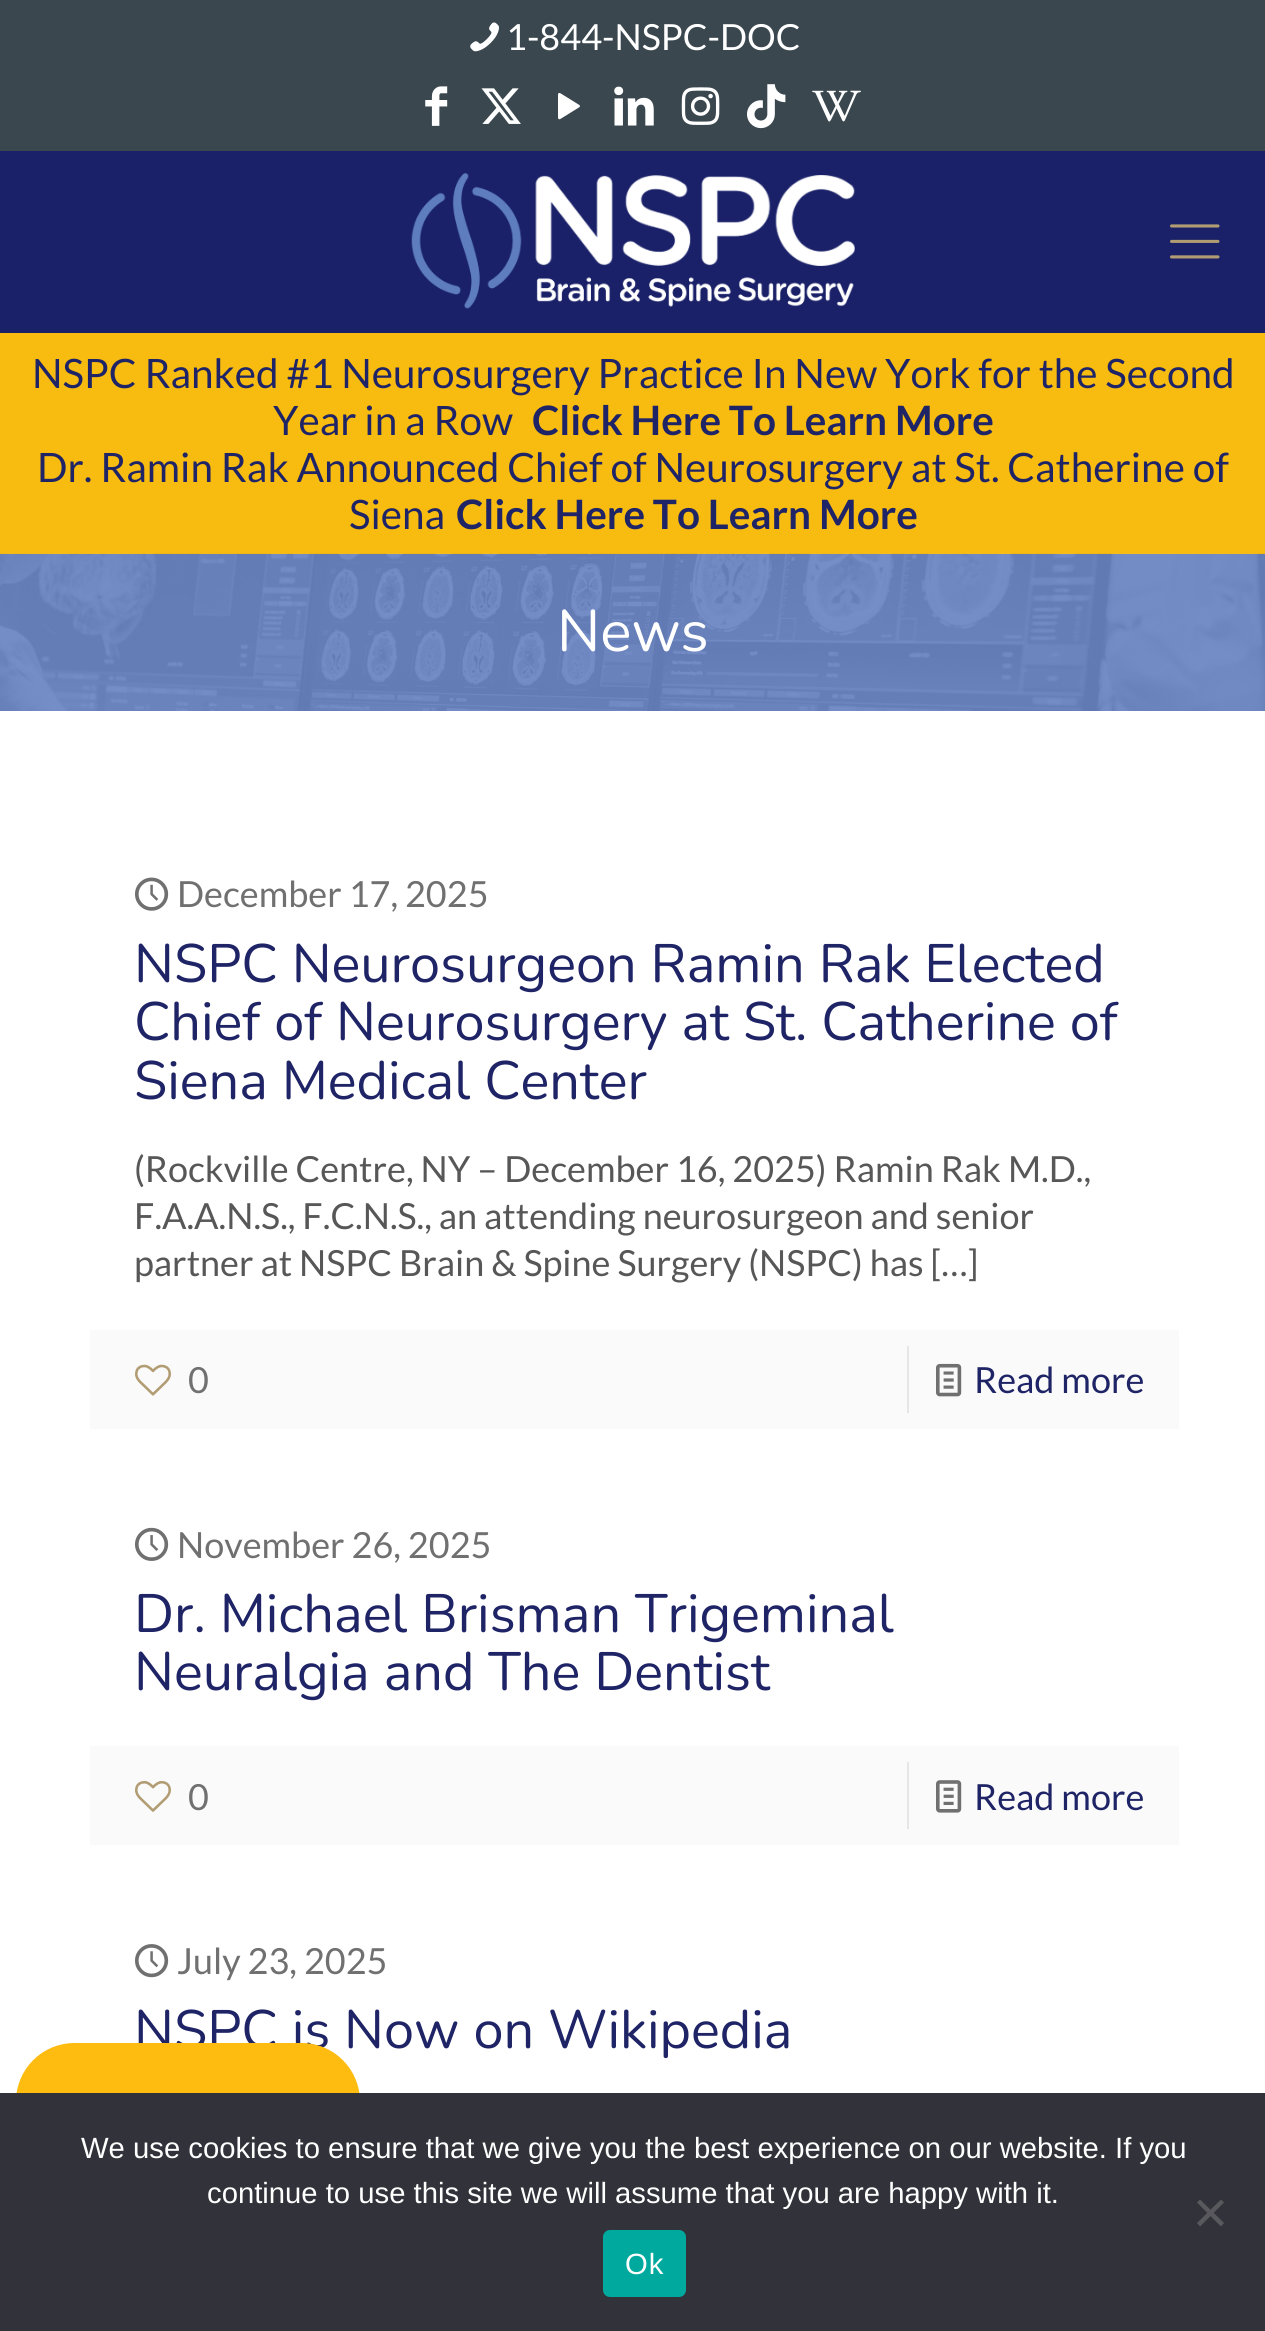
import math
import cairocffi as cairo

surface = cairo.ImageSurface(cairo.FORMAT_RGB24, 1265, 2331)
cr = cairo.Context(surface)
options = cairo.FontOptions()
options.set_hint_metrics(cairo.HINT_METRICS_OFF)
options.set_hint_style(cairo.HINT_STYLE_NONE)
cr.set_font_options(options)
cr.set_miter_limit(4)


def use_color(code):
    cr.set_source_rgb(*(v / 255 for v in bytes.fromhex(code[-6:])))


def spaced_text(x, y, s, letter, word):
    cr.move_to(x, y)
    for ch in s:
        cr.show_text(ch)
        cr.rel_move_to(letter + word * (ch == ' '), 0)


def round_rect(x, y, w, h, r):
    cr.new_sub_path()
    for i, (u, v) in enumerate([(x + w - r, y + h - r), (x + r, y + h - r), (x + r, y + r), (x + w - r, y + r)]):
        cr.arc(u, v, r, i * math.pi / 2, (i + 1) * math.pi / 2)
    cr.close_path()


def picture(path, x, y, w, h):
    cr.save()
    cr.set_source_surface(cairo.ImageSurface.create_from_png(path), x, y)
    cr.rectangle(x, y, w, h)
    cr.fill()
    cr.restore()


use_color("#ffffff")
cr.paint()
use_color("#3a474f")
cr.rectangle(0, 0, 1265, 151)
cr.fill()
picture("img1.png", 470, 22, 29, 30)
cr.select_font_face("Lato")
cr.set_font_size(36)
use_color("#ffffff")
cr.move_to(506, 50)
cr.show_text("1-844-NSPC-DOC")
picture("img2.png", 425, 86, 23, 40)
picture("img3.png", 481, 88, 40, 36)
picture("img4.png", 558, 92, 22, 28)
picture("img5.png", 614, 86, 40, 40)
picture("img6.png", 681, 87, 39, 38)
picture("img7.png", 747, 84, 39, 45)
picture("img8.png", 812, 90, 49, 32)
use_color("#1a2168")
cr.rectangle(0, 151, 1265, 182)
cr.fill()
picture("img9.png", 411, 173, 444, 136)
picture("img10.png", 1170, 224, 50, 35)
use_color("#f8bc10")
cr.rectangle(0, 333, 1265, 221)
cr.fill()
cr.set_font_size(40.5)
use_color("#1f2466")
cr.move_to(32, 388)
cr.show_text("NSPC Ranked #1 Neurosurgery Practice In New York for the Second")
cr.move_to(273, 435)
cr.show_text("Year in a Row")
cr.select_font_face("Lato", cairo.FONT_SLANT_NORMAL, cairo.FONT_WEIGHT_BOLD)
cr.move_to(532, 435)
cr.show_text("Click Here To Learn More")
cr.select_font_face("Lato")
cr.move_to(37, 482)
cr.show_text("Dr. Ramin Rak Announced Chief of Neurosurgery at St. Catherine of")
cr.move_to(349, 529)
cr.show_text("Siena")
cr.select_font_face("Lato", cairo.FONT_SLANT_NORMAL, cairo.FONT_WEIGHT_BOLD)
cr.move_to(456, 529)
cr.show_text("Click Here To Learn More")
use_color("#6984c2")
cr.rectangle(0, 554, 1265, 157)
cr.fill()
picture("img11.png", 0, 553, 1265, 158)
cr.select_font_face("Nunito")
cr.set_font_size(58.5)
use_color("#ffffff")
cr.move_to(557, 651)
cr.show_text("News")
picture("img12.png", 135, 877, 34, 34)
cr.select_font_face("Lato")
cr.set_font_size(36)
use_color("#707070")
cr.move_to(177, 907)
cr.show_text("December 17, 2025")
cr.select_font_face("Nunito")
cr.set_font_size(54)
use_color("#1f2466")
cr.move_to(134, 982)
cr.show_text("NSPC Neurosurgeon Ramin Rak Elected")
cr.move_to(134, 1040)
cr.show_text("Chief of Neurosurgery at St. Catherine of")
cr.move_to(134, 1099)
cr.show_text("Siena Medical Center")
cr.select_font_face("Lato")
cr.set_font_size(36)
use_color("#575757")
cr.move_to(134, 1182)
cr.show_text("(Rockville Centre, NY – December 16, 2025) Ramin Rak M.D.,")
cr.move_to(134, 1229)
cr.show_text("F.A.A.N.S., F.C.N.S., an attending neurosurgeon and senior")
cr.move_to(134, 1276)
cr.show_text("partner at NSPC Brain & Spine Surgery (NSPC) has […]")
use_color("#fafafa")
cr.rectangle(90, 1330, 1089, 99)
cr.fill()
picture("img13.png", 135, 1364, 36, 32)
use_color("#707070")
cr.move_to(188, 1393)
cr.show_text("0")
use_color("#e6e6e6")
cr.rectangle(907, 1346, 2, 67)
cr.fill()
picture("img14.png", 936, 1363, 26, 34)
use_color("#1f2466")
cr.move_to(974, 1393)
cr.show_text("Read more")
picture("img15.png", 135, 1527, 34, 34)
use_color("#707070")
cr.move_to(177, 1558)
cr.show_text("November 26, 2025")
cr.select_font_face("Nunito")
cr.set_font_size(54)
use_color("#1f2466")
cr.move_to(134, 1632)
cr.show_text("Dr. Michael Brisman Trigeminal")
cr.move_to(134, 1690)
cr.show_text("Neuralgia and The Dentist")
use_color("#fafafa")
cr.rectangle(90, 1746, 1089, 99)
cr.fill()
picture("img16.png", 135, 1781, 36, 31)
cr.select_font_face("Lato")
cr.set_font_size(36)
use_color("#707070")
cr.move_to(188, 1810)
cr.show_text("0")
use_color("#e6e6e6")
cr.rectangle(907, 1762, 2, 67)
cr.fill()
picture("img17.png", 936, 1780, 26, 33)
use_color("#1f2466")
cr.move_to(974, 1810)
cr.show_text("Read more")
picture("img18.png", 135, 1944, 34, 34)
use_color("#707070")
cr.move_to(177, 1974)
cr.show_text("July 23, 2025")
cr.select_font_face("Nunito")
cr.set_font_size(54)
use_color("#1f2466")
cr.move_to(134, 2048)
cr.show_text("NSPC is Now on Wikipedia")
use_color("#febc11")
round_rect(16, 2043, 344, 117, 58.5)
cr.fill()
use_color("#32323a")
cr.rectangle(0, 2093, 1265, 238)
cr.fill()
cr.select_font_face("Liberation Sans")
cr.set_font_size(29.25)
use_color("#ffffff")
cr.move_to(81, 2158)
cr.show_text("We use cookies to ensure that we give you the best experience on our website. If you")
cr.move_to(207, 2203)
cr.show_text("continue to use this site we will assume that you are happy with it.")
use_color("#59595d")
cr.new_path()
cr.move_to(1221, 2199.5)
cr.line_to(1224, 2202.5)
cr.line_to(1200, 2226.5)
cr.line_to(1197, 2223)
cr.close_path()
cr.fill()
cr.new_path()
cr.move_to(1197, 2202.5)
cr.line_to(1200, 2199.5)
cr.line_to(1224, 2223)
cr.line_to(1221, 2226.5)
cr.close_path()
cr.fill()
use_color("#00a99d")
round_rect(603, 2230, 83, 67, 7)
cr.fill()
use_color("#ffffff")
spaced_text(625, 2274, "Ok", 1, 0)
surface.write_to_png("result.png")
